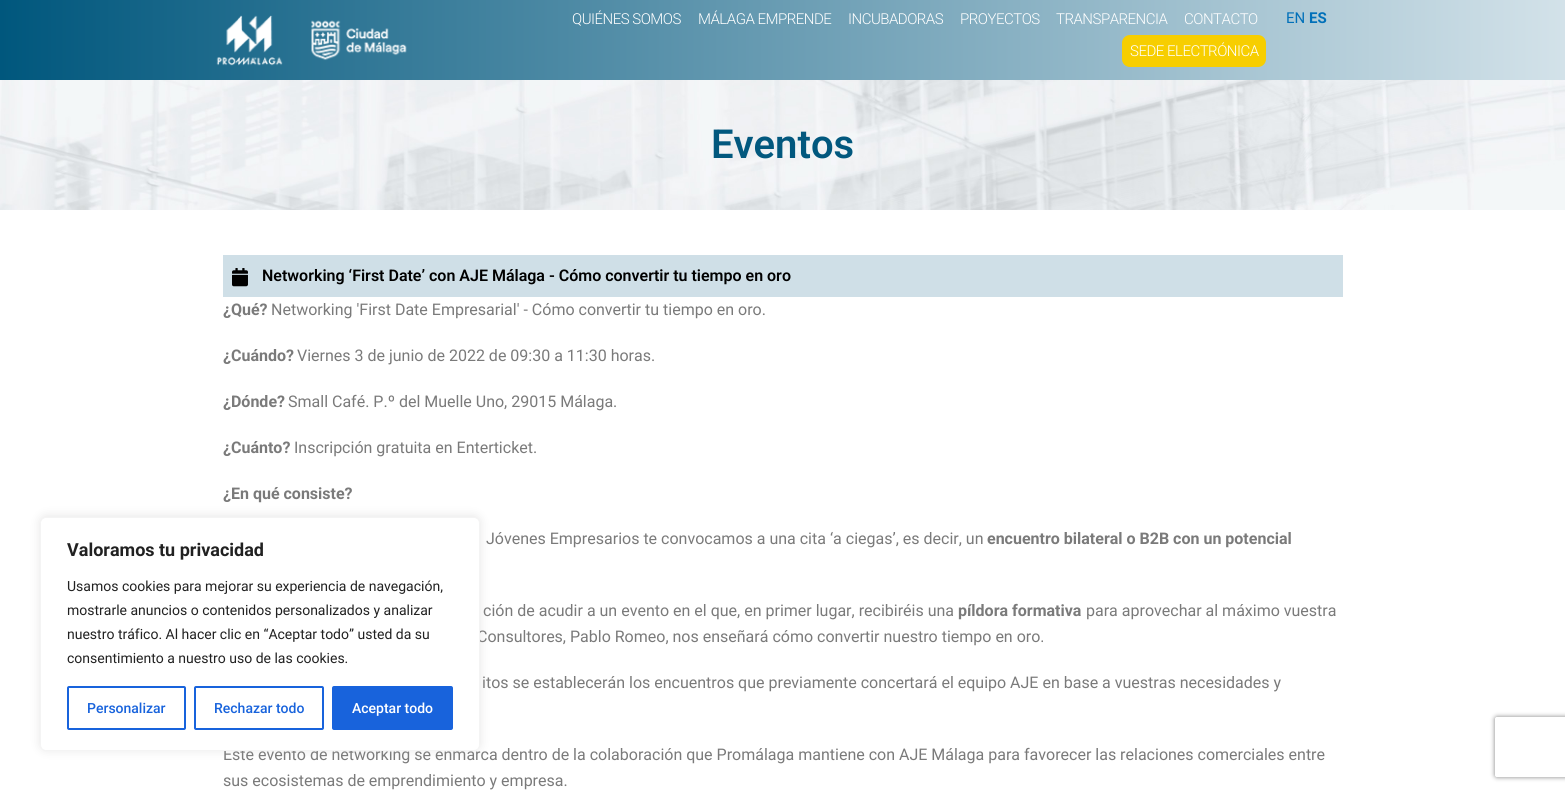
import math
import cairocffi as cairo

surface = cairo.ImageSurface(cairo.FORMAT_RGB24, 1565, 791)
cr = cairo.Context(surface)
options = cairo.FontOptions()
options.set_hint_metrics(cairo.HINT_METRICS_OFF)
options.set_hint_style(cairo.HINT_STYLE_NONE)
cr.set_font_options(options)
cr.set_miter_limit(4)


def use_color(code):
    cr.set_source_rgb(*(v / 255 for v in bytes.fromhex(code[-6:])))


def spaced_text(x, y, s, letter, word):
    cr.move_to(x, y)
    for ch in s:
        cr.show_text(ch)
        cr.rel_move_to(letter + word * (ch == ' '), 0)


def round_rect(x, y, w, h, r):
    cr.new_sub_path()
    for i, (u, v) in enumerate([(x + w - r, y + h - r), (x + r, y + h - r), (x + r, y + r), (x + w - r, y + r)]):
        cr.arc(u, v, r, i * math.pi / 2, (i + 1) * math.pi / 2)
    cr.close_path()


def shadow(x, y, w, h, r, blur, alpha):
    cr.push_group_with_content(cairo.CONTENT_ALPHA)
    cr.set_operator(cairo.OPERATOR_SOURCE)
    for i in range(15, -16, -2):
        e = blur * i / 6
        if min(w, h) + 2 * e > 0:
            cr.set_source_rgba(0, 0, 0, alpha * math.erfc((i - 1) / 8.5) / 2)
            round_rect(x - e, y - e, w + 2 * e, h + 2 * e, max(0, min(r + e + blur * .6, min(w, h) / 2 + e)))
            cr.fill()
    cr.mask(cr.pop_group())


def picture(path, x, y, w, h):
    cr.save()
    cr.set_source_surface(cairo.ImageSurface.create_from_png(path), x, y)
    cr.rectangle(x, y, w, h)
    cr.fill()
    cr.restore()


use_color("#ffffff")
cr.paint()
gradient = cairo.LinearGradient(0, 40, 1565, 40)
gradient.add_color_stop_rgba(0, 0, 0.341, 0.49, 1)
gradient.add_color_stop_rgba(1, 0.827, 0.886, 0.914, 1)
cr.set_source(gradient)
cr.rectangle(0, 0, 1565, 80)
cr.fill()
picture("img1.png", 216, 15, 191, 51)
cr.select_font_face("Roboto Light")
cr.set_font_size(15)
use_color("#ffffff")
spaced_text(572, 24, "QUIÉNES SOMOS", -0.5, 0)
spaced_text(698, 24, "MÁLAGA EMPRENDE", -0.5, 0)
spaced_text(848, 24, "INCUBADORAS", -0.5, 0)
spaced_text(960, 24, "PROYECTOS", -0.5, 0)
spaced_text(1056, 24, "TRANSPARENCIA", -0.5, 0)
spaced_text(1184, 24, "CONTACTO", -0.5, 0)
use_color("#f7ce00")
round_rect(1122, 35, 144, 32, 8)
cr.fill()
use_color("#ffffff")
spaced_text(1130, 56, "SEDE ELECTRÓNICA", -0.5, 0)
cr.select_font_face("Roboto")
use_color("#0170b9")
cr.move_to(1286, 23)
cr.show_text("EN")
cr.select_font_face("Roboto", cairo.FONT_SLANT_NORMAL, cairo.FONT_WEIGHT_BOLD)
cr.move_to(1309, 23)
cr.show_text("ES")
picture("img2.png", 0, 80, 1565, 130)
cr.select_font_face("Roboto SemiBold")
cr.set_font_size(40)
use_color("#02587e")
cr.move_to(711, 158)
cr.show_text("Eventos")
use_color("#cfdfe7")
cr.rectangle(223, 255, 1120, 42)
cr.fill()
picture("img3.png", 232, 268, 16, 19)
cr.set_font_size(16)
use_color("#000000")
cr.move_to(262, 281)
cr.show_text("Networking ‘First Date’ con AJE Málaga - Cómo convertir tu tiempo en oro")
cr.select_font_face("Roboto", cairo.FONT_SLANT_NORMAL, cairo.FONT_WEIGHT_BOLD)
use_color("#7a7a7a")
cr.move_to(223, 315)
cr.show_text("¿Qué?")
cr.select_font_face("Roboto")
cr.move_to(271, 315)
cr.show_text("Networking 'First Date Empresarial' - Cómo convertir tu tiempo en oro.")
cr.select_font_face("Roboto", cairo.FONT_SLANT_NORMAL, cairo.FONT_WEIGHT_BOLD)
cr.move_to(223, 361)
cr.show_text("¿Cuándo?")
cr.select_font_face("Roboto")
cr.move_to(297, 361)
cr.show_text("Viernes 3 de junio de 2022 de 09:30 a 11:30 horas.")
cr.select_font_face("Roboto", cairo.FONT_SLANT_NORMAL, cairo.FONT_WEIGHT_BOLD)
cr.move_to(223, 407)
cr.show_text("¿Dónde?")
cr.select_font_face("Roboto")
cr.move_to(288, 407)
cr.show_text("Small Café. P.º del Muelle Uno, 29015 Málaga.")
cr.select_font_face("Roboto", cairo.FONT_SLANT_NORMAL, cairo.FONT_WEIGHT_BOLD)
cr.move_to(223, 453)
cr.show_text("¿Cuánto?")
cr.select_font_face("Roboto")
cr.move_to(294, 453)
cr.show_text("Inscripción gratuita en Enterticket.")
cr.select_font_face("Roboto", cairo.FONT_SLANT_NORMAL, cairo.FONT_WEIGHT_BOLD)
cr.move_to(223, 499)
cr.show_text("¿En qué consiste?")
cr.select_font_face("Roboto")
cr.move_to(486, 544)
cr.show_text("Jóvenes Empresarios te convocamos a una cita ‘a ciegas’, es decir, un")
cr.select_font_face("Roboto", cairo.FONT_SLANT_NORMAL, cairo.FONT_WEIGHT_BOLD)
cr.move_to(987, 544)
cr.show_text("encuentro bilateral o B2B con un potencial")
cr.select_font_face("Roboto")
cr.move_to(483, 616)
cr.show_text("ción de acudir a un evento en el que, en primer lugar, recibiréis una")
cr.select_font_face("Roboto", cairo.FONT_SLANT_NORMAL, cairo.FONT_WEIGHT_BOLD)
cr.move_to(958, 616)
cr.show_text("píldora formativa")
cr.select_font_face("Roboto")
cr.move_to(1086, 616)
cr.show_text("para aprovechar al máximo vuestra")
cr.move_to(477, 642)
cr.show_text("Consultores, Pablo Romeo, nos enseñará cómo convertir nuestro tiempo en oro.")
cr.move_to(482, 688)
cr.show_text("itos se establecerán los encuentros que previamente concertará el equipo AJE en base a vuestras necesidades y")
cr.move_to(223, 760)
cr.show_text("Este evento de networking se enmarca dentro de la colaboración que Promálaga mantiene con AJE Málaga para favorecer las relaciones comerciales entre")
cr.move_to(223, 786)
cr.show_text("sus ecosistemas de emprendimiento y empresa.")
use_color("#acabab")
shadow(40, 516, 440, 234, 6, 5, 0.3)
use_color("#ffffff")
round_rect(40.5, 517.5, 439, 233, 5.5)
cr.fill_preserve()
use_color("#f4f4f4")
cr.set_line_width(1)
cr.stroke()
cr.select_font_face("Roboto", cairo.FONT_SLANT_NORMAL, cairo.FONT_WEIGHT_BOLD)
cr.set_font_size(18)
use_color("#212121")
cr.move_to(67, 556)
cr.show_text("Valoramos tu privacidad")
cr.select_font_face("Roboto")
cr.set_font_size(14)
cr.move_to(67, 591)
cr.show_text("Usamos cookies para mejorar su experiencia de navegación,")
cr.move_to(67, 615)
cr.show_text("mostrarle anuncios o contenidos personalizados y analizar")
cr.move_to(67, 639)
cr.show_text("nuestro tráfico. Al hacer clic en “Aceptar todo” usted da su")
cr.move_to(67, 663)
cr.show_text("consentimiento a nuestro uso de las cookies.")
round_rect(68, 687, 117, 42, 1)
use_color("#1863dc")
cr.set_line_width(2)
cr.stroke()
cr.select_font_face("Roboto Medium")
cr.move_to(87, 713)
cr.show_text("Personalizar")
round_rect(195, 687, 128, 42, 1)
cr.stroke()
cr.move_to(214, 713)
cr.show_text("Rechazar todo")
round_rect(333, 687, 119, 42, 1)
cr.fill_preserve()
cr.stroke()
use_color("#ffffff")
cr.move_to(352, 713)
cr.show_text("Aceptar todo")
cr.save()
cr.set_fill_rule(cairo.FILL_RULE_EVEN_ODD)
cr.new_path()
cr.move_to(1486, 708)
cr.line_to(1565, 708)
cr.line_to(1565, 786)
cr.line_to(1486, 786)
cr.close_path()
cr.move_to(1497, 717)
cr.line_to(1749, 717)
cr.curve_to(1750, 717, 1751, 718, 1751, 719)
cr.line_to(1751, 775)
cr.curve_to(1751, 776, 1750, 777, 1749, 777)
cr.line_to(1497, 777)
cr.curve_to(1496, 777, 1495, 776, 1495, 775)
cr.line_to(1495, 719)
cr.curve_to(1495, 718, 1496, 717, 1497, 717)
cr.close_path()
cr.clip()
use_color("#808080")
shadow(1495, 717, 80, 60, 2, 2.5, 1)
cr.restore()
surface.write_to_png("result.png")
